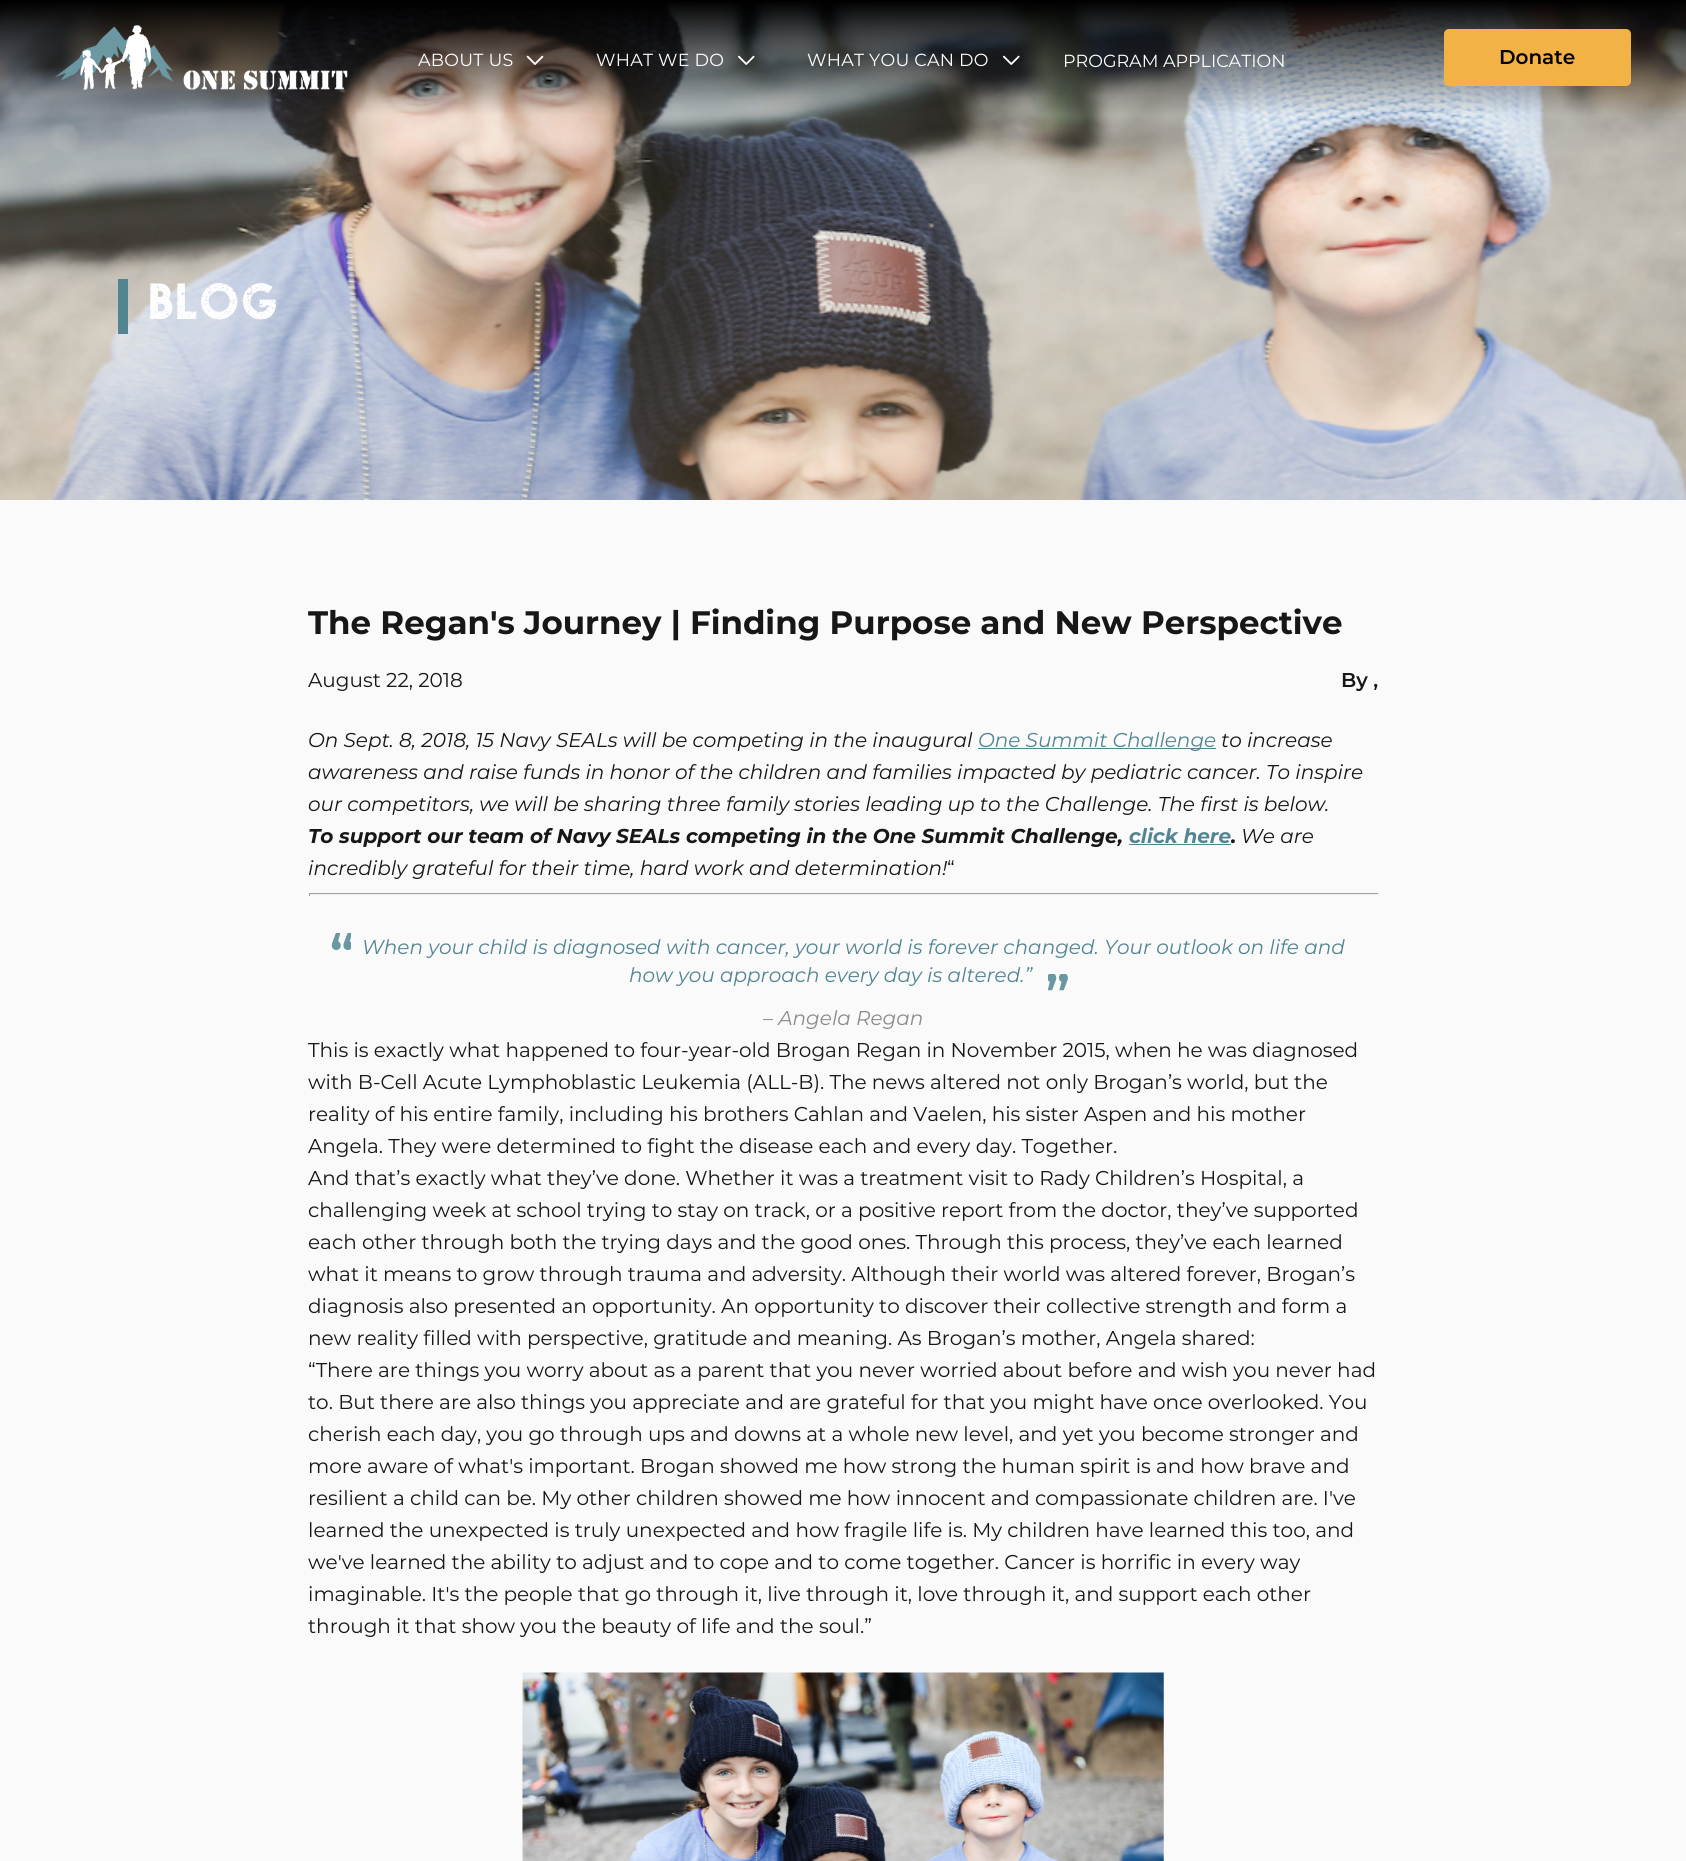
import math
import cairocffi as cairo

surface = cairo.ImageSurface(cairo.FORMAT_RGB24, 1686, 1861)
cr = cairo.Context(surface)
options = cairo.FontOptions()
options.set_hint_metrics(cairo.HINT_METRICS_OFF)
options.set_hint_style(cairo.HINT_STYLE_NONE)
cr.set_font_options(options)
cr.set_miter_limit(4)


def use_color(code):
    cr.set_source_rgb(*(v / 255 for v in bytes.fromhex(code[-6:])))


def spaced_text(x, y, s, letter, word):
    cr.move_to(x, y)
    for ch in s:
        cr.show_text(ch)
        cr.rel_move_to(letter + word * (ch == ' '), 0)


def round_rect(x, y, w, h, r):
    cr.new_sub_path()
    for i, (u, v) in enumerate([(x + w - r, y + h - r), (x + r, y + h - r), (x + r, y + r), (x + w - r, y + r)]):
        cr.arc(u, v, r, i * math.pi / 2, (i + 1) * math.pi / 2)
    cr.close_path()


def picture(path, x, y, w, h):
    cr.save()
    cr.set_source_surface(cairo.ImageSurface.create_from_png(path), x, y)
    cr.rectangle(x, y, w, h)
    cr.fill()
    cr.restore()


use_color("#fafafa")
cr.paint()
picture("img5.png", 0, 0, 1686, 500)
picture("img1.png", 55, 25, 293, 65)
cr.select_font_face("Montserrat")
cr.set_font_size(17.5)
use_color("#ffffff")
spaced_text(418, 66, "ABOUT US", 0.25, 0)
picture("img2.png", 526, 55, 18, 10)
spaced_text(596, 66, "WHAT WE DO", 0.25, 0)
picture("img3.png", 738, 55, 17, 10)
spaced_text(807, 66, "WHAT YOU CAN DO", 0.25, 0)
picture("img4.png", 1003, 55, 17, 10)
cr.move_to(1063, 67)
cr.show_text("PROGRAM APPLICATION")
use_color("#f2b246")
round_rect(1444, 29, 187, 57, 5)
cr.fill()
cr.select_font_face("Montserrat SemiBold")
cr.set_font_size(20)
use_color("#000000")
cr.move_to(1499, 64)
cr.show_text("Donate")
use_color("#528491")
cr.rectangle(118, 279, 10, 55)
cr.fill()
cr.select_font_face("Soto")
cr.set_font_size(47.5)
use_color("#ffffff")
cr.move_to(148, 319)
cr.show_text("BLOG")
cr.select_font_face("Montserrat", cairo.FONT_SLANT_NORMAL, cairo.FONT_WEIGHT_BOLD)
cr.set_font_size(32.5)
use_color("#171717")
cr.move_to(308, 634)
cr.show_text("The Regan's Journey | Finding Purpose and New Perspective")
cr.select_font_face("Montserrat")
cr.set_font_size(20)
cr.move_to(308, 687)
cr.show_text("August 22, 2018")
cr.select_font_face("Montserrat SemiBold")
cr.move_to(1341, 687)
cr.show_text("By ,")
cr.select_font_face("Montserrat", cairo.FONT_SLANT_ITALIC)
cr.move_to(308, 747)
cr.show_text("On Sept. 8, 2018, 15 Navy SEALs will be competing in the inaugural")
use_color("#528491")
cr.rectangle(978, 748, 238, 1)
cr.fill()
cr.move_to(978, 747)
cr.show_text("One Summit Challenge")
use_color("#171717")
cr.move_to(1221, 747)
cr.show_text("to increase")
cr.move_to(308, 779)
cr.show_text("awareness and raise funds in honor of the children and families impacted by pediatric cancer. To inspire")
cr.move_to(308, 811)
cr.show_text("our competitors, we will be sharing three family stories leading up to the Challenge. The first is below.")
cr.select_font_face("Montserrat", cairo.FONT_SLANT_ITALIC, cairo.FONT_WEIGHT_BOLD)
cr.move_to(308, 843)
cr.show_text("To support our team of Navy SEALs competing in the One Summit Challenge,")
use_color("#528491")
cr.move_to(1129, 843)
cr.show_text("click here")
cr.rectangle(1129, 844, 102, 1)
cr.fill()
use_color("#171717")
cr.move_to(1231, 843)
cr.show_text(".")
cr.select_font_face("Montserrat", cairo.FONT_SLANT_ITALIC)
cr.move_to(1241, 843)
cr.show_text("We are")
cr.move_to(308, 875)
cr.show_text("incredibly grateful for their time, hard work and determination!")
cr.select_font_face("Montserrat")
cr.move_to(947, 875)
cr.show_text("“")
use_color("#9f9f9f")
cr.rectangle(309, 893, 1070, 1)
cr.fill()
use_color("#eeeeee")
cr.rectangle(1378, 893, 1, 3)
cr.fill()
cr.rectangle(309, 894, 1070, 1)
cr.fill()
use_color("#9f9f9f")
cr.rectangle(309, 893, 1, 3)
cr.fill()
picture("img6.png", 331, 933, 20, 17)
cr.select_font_face("Montserrat", cairo.FONT_SLANT_ITALIC)
use_color("#528491")
cr.move_to(362, 954)
cr.show_text("When your child is diagnosed with cancer, your world is forever changed. Your outlook on life and")
cr.move_to(629, 982)
cr.show_text("how you approach every day is altered.”")
picture("img7.png", 1048, 974, 20, 17)
use_color("#8a8b8b")
cr.move_to(763, 1025)
cr.show_text("– Angela Regan")
cr.select_font_face("Montserrat")
use_color("#171717")
cr.move_to(308, 1057)
cr.show_text("This is exactly what happened to four-year-old Brogan Regan in November 2015, when he was diagnosed")
cr.move_to(308, 1089)
cr.show_text("with B-Cell Acute Lymphoblastic Leukemia (ALL-B). The news altered not only Brogan’s world, but the")
cr.move_to(308, 1121)
cr.show_text("reality of his entire family, including his brothers Cahlan and Vaelen, his sister Aspen and his mother")
cr.move_to(308, 1153)
cr.show_text("Angela. They were determined to fight the disease each and every day. Together.")
cr.move_to(308, 1185)
cr.show_text("And that’s exactly what they’ve done. Whether it was a treatment visit to Rady Children’s Hospital, a")
cr.move_to(308, 1217)
cr.show_text("challenging week at school trying to stay on track, or a positive report from the doctor, they’ve supported")
cr.move_to(308, 1249)
cr.show_text("each other through both the trying days and the good ones. Through this process, they’ve each learned")
cr.move_to(308, 1281)
cr.show_text("what it means to grow through trauma and adversity. Although their world was altered forever, Brogan’s")
cr.move_to(308, 1313)
cr.show_text("diagnosis also presented an opportunity. An opportunity to discover their collective strength and form a")
cr.move_to(308, 1345)
cr.show_text("new reality filled with perspective, gratitude and meaning. As Brogan’s mother, Angela shared:")
cr.move_to(308, 1377)
cr.show_text("“There are things you worry about as a parent that you never worried about before and wish you never had")
cr.move_to(308, 1409)
cr.show_text("to. But there are also things you appreciate and are grateful for that you might have once overlooked. You")
cr.move_to(308, 1441)
cr.show_text("cherish each day, you go through ups and downs at a whole new level, and yet you become stronger and")
cr.move_to(308, 1473)
cr.show_text("more aware of what's important. Brogan showed me how strong the human spirit is and how brave and")
cr.move_to(308, 1505)
cr.show_text("resilient a child can be. My other children showed me how innocent and compassionate children are. I've")
cr.move_to(308, 1537)
cr.show_text("learned the unexpected is truly unexpected and how fragile life is. My children have learned this too, and")
cr.move_to(308, 1569)
cr.show_text("we've learned the ability to adjust and to cope and to come together. Cancer is horrific in every way")
cr.move_to(308, 1601)
cr.show_text("imaginable. It's the people that go through it, live through it, love through it, and support each other")
cr.move_to(308, 1633)
cr.show_text("through it that show you the beauty of life and the soul.”")
picture("img8.png", 522, 1672, 642, 189)
surface.write_to_png("result.png")
